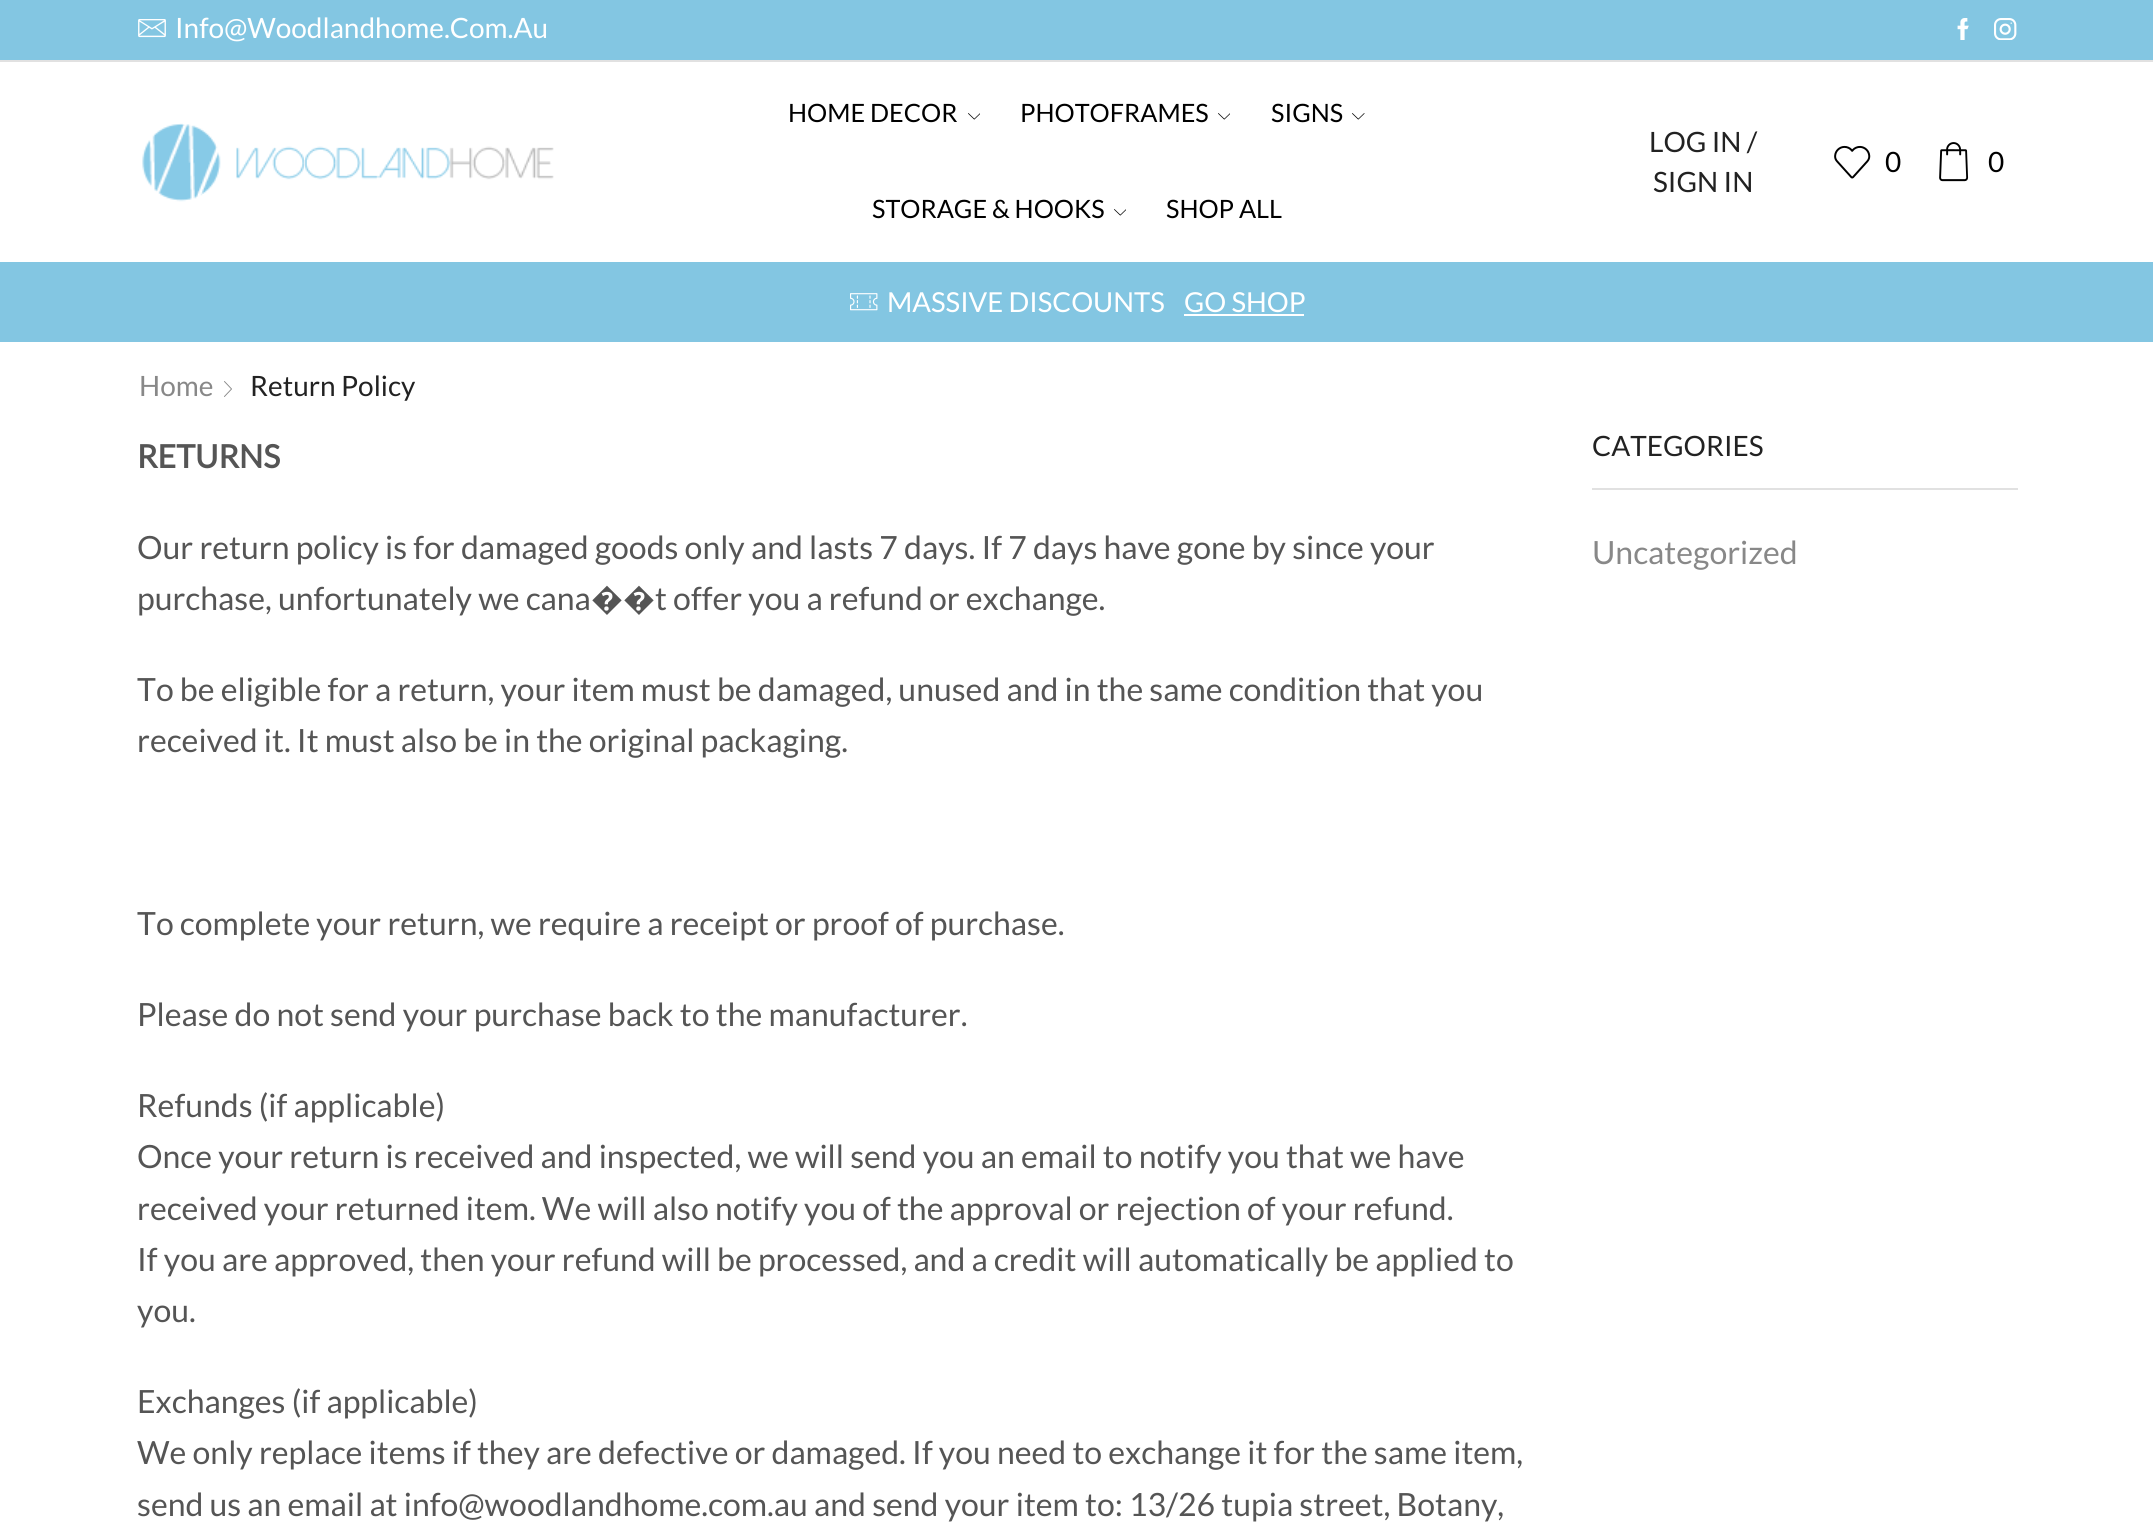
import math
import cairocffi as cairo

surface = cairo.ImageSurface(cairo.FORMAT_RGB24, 2153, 1528)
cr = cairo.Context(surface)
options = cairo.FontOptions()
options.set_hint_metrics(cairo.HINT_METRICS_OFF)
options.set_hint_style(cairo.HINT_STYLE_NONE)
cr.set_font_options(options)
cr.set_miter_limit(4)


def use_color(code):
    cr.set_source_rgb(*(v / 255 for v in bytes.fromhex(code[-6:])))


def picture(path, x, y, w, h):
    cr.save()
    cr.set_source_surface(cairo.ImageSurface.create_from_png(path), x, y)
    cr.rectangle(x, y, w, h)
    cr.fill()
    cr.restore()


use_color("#ffffff")
cr.paint()
use_color("#83c6e2")
cr.rectangle(0, 0, 2153, 60)
cr.fill()
use_color("#e1e1e1")
cr.rectangle(0, 60, 2153, 2)
cr.fill()
picture("img1.png", 138, 19, 28, 19)
cr.select_font_face("Lato")
cr.set_font_size(28)
use_color("#ffffff")
cr.move_to(175, 38)
cr.show_text("Info@Woodlandhome.Com.Au")
picture("img2.png", 1957, 18, 12, 22)
picture("img3.png", 1994, 18, 23, 22)
picture("img4.png", 142, 123, 412, 79)
cr.set_font_size(25.25)
use_color("#000000")
cr.move_to(788, 122)
cr.show_text("HOME DECOR")
picture("img5.png", 968, 113, 12, 7)
cr.move_to(1020, 122)
cr.show_text("PHOTOFRAMES")
picture("img5.png", 1218, 113, 12, 7)
cr.move_to(1271, 122)
cr.show_text("SIGNS")
picture("img6.png", 1352, 113, 13, 7)
cr.move_to(872, 218)
cr.show_text("STORAGE & HOOKS")
picture("img5.png", 1114, 209, 12, 7)
cr.move_to(1166, 218)
cr.show_text("SHOP ALL")
cr.set_font_size(28)
use_color("#222222")
cr.move_to(1649, 152)
cr.show_text("LOG IN /")
cr.move_to(1653, 192)
cr.show_text("SIGN IN")
picture("img7.png", 1834, 145, 37, 34)
use_color("#000000")
cr.move_to(1885, 172)
cr.show_text("0")
picture("img8.png", 1939, 142, 30, 40)
cr.move_to(1988, 172)
cr.show_text("0")
use_color("#83c6e2")
cr.rectangle(0, 262, 2153, 80)
cr.fill()
picture("img9.png", 850, 293, 28, 18)
cr.set_font_size(27.5)
use_color("#ffffff")
cr.move_to(887, 312)
cr.show_text("MASSIVE DISCOUNTS")
cr.move_to(1184, 312)
cr.show_text("GO SHOP")
cr.rectangle(1184, 314, 120, 2)
cr.fill()
cr.set_font_size(28)
use_color("#888888")
cr.move_to(139, 396)
cr.show_text("Home")
picture("img10.png", 224, 381, 8, 16)
use_color("#222222")
cr.move_to(250, 396)
cr.show_text("Return Policy")
cr.select_font_face("Lato", cairo.FONT_SLANT_NORMAL, cairo.FONT_WEIGHT_BOLD)
cr.set_font_size(32)
use_color("#555555")
cr.move_to(137, 468)
cr.show_text("RETURNS")
cr.select_font_face("Lato")
cr.move_to(137, 559)
cr.show_text("Our return policy is for damaged goods only and lasts 7 days. If 7 days have gone by since your")
cr.move_to(137, 610)
cr.show_text("purchase, unfortunately we cana")
cr.select_font_face("Noto Sans")
cr.move_to(591, 610)
cr.show_text("��")
cr.select_font_face("Lato")
cr.move_to(655, 610)
cr.show_text("t offer you a refund or exchange.")
cr.move_to(137, 701)
cr.show_text("To be eligible for a return, your item must be damaged, unused and in the same condition that you")
cr.move_to(137, 752)
cr.show_text("received it. It must also be in the original packaging.")
cr.move_to(137, 935)
cr.show_text("To complete your return, we require a receipt or proof of purchase.")
cr.move_to(137, 1026)
cr.show_text("Please do not send your purchase back to the manufacturer.")
cr.move_to(137, 1117)
cr.show_text("Refunds (if applicable)")
cr.move_to(137, 1168)
cr.show_text("Once your return is received and inspected, we will send you an email to notify you that we have")
cr.move_to(137, 1220)
cr.show_text("received your returned item. We will also notify you of the approval or rejection of your refund.")
cr.move_to(137, 1271)
cr.show_text("If you are approved, then your refund will be processed, and a credit will automatically be applied to")
cr.move_to(137, 1322)
cr.show_text("you.")
cr.move_to(137, 1413)
cr.show_text("Exchanges (if applicable)")
cr.move_to(137, 1464)
cr.show_text("We only replace items if they are defective or damaged. If you need to exchange it for the same item,")
cr.move_to(137, 1516)
cr.show_text("send us an email at info@woodlandhome.com.au and send your item to: 13/26 tupia street, Botany,")
use_color("#e1e1e1")
cr.rectangle(1592, 488, 426, 2)
cr.fill()
cr.set_font_size(28)
use_color("#222222")
cr.move_to(1592, 456)
cr.show_text("CATEGORIES")
cr.set_font_size(32)
use_color("#888888")
cr.move_to(1592, 564)
cr.show_text("Uncategorized")
surface.write_to_png("result.png")
